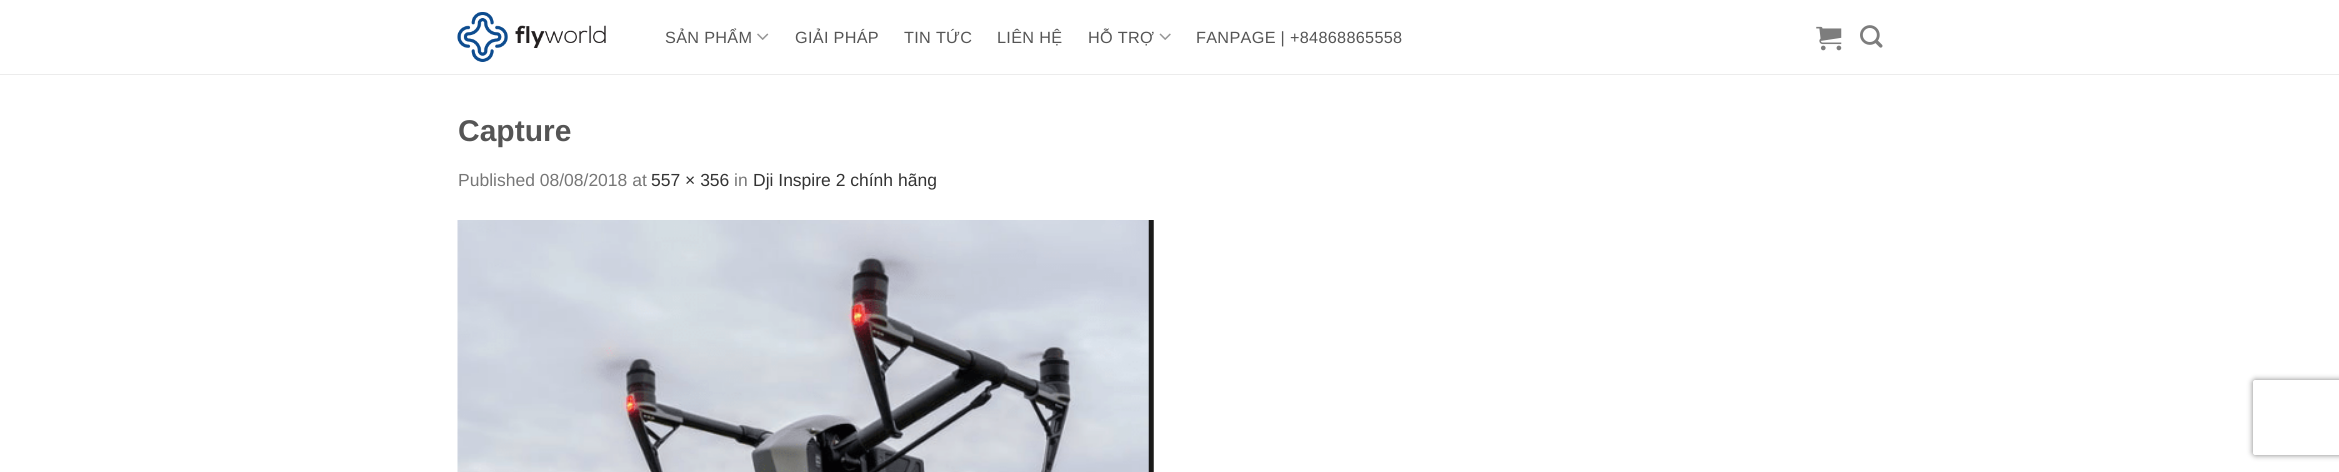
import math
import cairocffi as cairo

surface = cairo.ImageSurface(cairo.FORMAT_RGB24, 2339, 472)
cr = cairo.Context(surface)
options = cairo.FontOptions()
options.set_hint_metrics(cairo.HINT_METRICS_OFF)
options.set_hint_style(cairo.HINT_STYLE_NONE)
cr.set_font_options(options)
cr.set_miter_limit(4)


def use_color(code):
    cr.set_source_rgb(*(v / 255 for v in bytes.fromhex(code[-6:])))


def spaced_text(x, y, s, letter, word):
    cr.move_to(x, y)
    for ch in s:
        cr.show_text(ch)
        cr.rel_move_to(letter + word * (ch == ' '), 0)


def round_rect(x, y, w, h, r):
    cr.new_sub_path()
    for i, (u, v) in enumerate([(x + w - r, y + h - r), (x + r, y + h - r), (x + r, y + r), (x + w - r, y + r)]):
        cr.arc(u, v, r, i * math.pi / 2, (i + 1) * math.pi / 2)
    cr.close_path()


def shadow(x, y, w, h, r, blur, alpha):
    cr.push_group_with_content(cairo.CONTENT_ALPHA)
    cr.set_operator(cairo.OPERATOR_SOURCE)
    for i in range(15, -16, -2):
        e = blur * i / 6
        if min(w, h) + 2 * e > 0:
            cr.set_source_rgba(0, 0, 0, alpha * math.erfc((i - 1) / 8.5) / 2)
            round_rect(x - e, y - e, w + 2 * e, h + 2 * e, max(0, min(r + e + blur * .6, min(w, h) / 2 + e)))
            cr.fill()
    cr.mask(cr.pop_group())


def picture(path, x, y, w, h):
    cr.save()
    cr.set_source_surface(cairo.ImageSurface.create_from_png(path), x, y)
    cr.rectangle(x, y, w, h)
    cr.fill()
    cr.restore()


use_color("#ffffff")
cr.paint()
use_color("#ececec")
cr.rectangle(0, 74, 2339, 1)
cr.fill()
picture("img1.png", 457, 12, 149, 50)
cr.select_font_face("Liberation Sans")
cr.set_font_size(16.25)
use_color("#555555")
spaced_text(665, 43, "SẢN PHẨM", 0.3, 0)
picture("img2.png", 757, 33, 12, 7)
spaced_text(795, 43, "GIẢI PHÁP", 0.3, 0)
spaced_text(904, 43, "TIN TỨC", 0.3, 0)
spaced_text(997, 43, "LIÊN HỆ", 0.3, 0)
spaced_text(1088, 43, "HỖ TRỢ", 0.3, 0)
picture("img3.png", 1159, 33, 12, 7)
spaced_text(1196, 43, "FANPAGE | +84868865558", 0.3, 0)
picture("img4.png", 1816, 26, 26, 25)
picture("img5.png", 1860, 25, 23, 23)
cr.select_font_face("Liberation Sans", cairo.FONT_SLANT_NORMAL, cairo.FONT_WEIGHT_BOLD)
cr.set_font_size(30)
cr.move_to(458, 141)
cr.show_text("Capture")
cr.select_font_face("Liberation Sans")
cr.set_font_size(17.5)
use_color("#777777")
cr.move_to(458, 186)
cr.show_text("Published 08/08/2018 at")
use_color("#333333")
cr.move_to(651, 186)
cr.show_text("557 × 356")
use_color("#777777")
cr.move_to(734, 186)
cr.show_text("in")
use_color("#333333")
cr.move_to(753, 186)
cr.show_text("Dji Inspire 2 chính hãng")
picture("img6.png", 457, 220, 697, 252)
cr.save()
cr.set_fill_rule(cairo.FILL_RULE_EVEN_ODD)
cr.new_path()
cr.move_to(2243, 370)
cr.line_to(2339, 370)
cr.line_to(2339, 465)
cr.line_to(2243, 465)
cr.close_path()
cr.move_to(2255.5, 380)
cr.line_to(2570.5, 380)
cr.curve_to(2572, 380, 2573, 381, 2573, 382.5)
cr.line_to(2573, 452.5)
cr.curve_to(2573, 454, 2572, 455, 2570.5, 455)
cr.line_to(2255.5, 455)
cr.curve_to(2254, 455, 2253, 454, 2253, 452.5)
cr.line_to(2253, 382.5)
cr.curve_to(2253, 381, 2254, 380, 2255.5, 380)
cr.close_path()
cr.clip()
use_color("#808080")
shadow(2253, 380, 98, 75, 2.5, 3, 1)
cr.restore()
surface.write_to_png("result.png")
